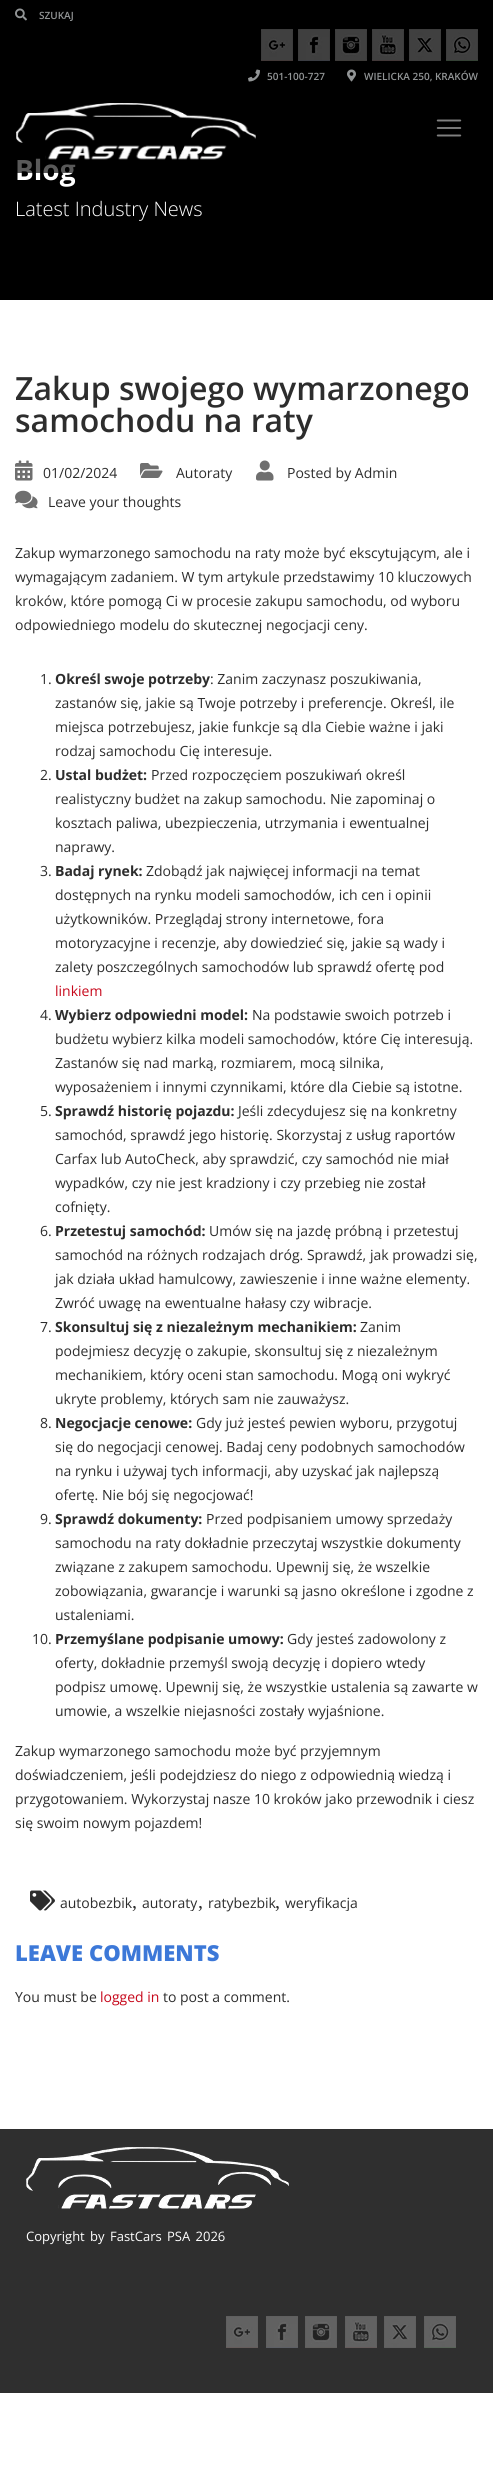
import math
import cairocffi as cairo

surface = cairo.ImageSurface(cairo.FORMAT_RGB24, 493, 2482)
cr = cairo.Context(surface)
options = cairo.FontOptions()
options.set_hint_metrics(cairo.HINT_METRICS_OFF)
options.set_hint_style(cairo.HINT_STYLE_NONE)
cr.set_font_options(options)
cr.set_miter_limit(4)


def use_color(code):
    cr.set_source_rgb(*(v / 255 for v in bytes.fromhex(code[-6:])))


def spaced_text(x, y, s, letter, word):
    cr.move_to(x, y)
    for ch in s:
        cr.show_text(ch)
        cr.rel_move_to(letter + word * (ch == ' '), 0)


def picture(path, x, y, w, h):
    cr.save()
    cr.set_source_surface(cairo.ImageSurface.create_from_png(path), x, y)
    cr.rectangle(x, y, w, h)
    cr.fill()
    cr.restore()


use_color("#ffffff")
cr.paint()
use_color("#000000")
cr.rectangle(0, 0, 493, 300)
cr.fill()
cr.select_font_face("Open Sans", cairo.FONT_SLANT_NORMAL, cairo.FONT_WEIGHT_BOLD)
cr.set_font_size(28)
use_color("#ffffff")
cr.move_to(15, 180)
cr.show_text("Blog")
cr.set_source_rgba(0, 0, 0, 0.65)
cr.rectangle(17, 158, 59, 15)
cr.fill()
picture("img1.png", 15, 8, 12, 13)
cr.select_font_face("Open Sans SemiBold")
cr.set_font_size(10)
use_color("#929596")
cr.move_to(39, 19)
cr.show_text("SZUKAJ")
picture("img2.png", 261, 29, 32, 32)
picture("img3.png", 298, 29, 32, 32)
picture("img4.png", 335, 29, 32, 32)
picture("img5.png", 372, 29, 32, 32)
picture("img6.png", 409, 29, 32, 32)
picture("img7.png", 446, 29, 32, 32)
picture("img8.png", 248, 69, 12, 13)
cr.move_to(267, 80)
cr.show_text("501-100-727")
picture("img9.png", 347, 69, 9, 13)
cr.move_to(364, 80)
cr.show_text("WIELICKA 250, KRAKÓW")
picture("img10.png", 16, 103, 240, 57)
picture("img11.png", 436, 119, 26, 18)
cr.select_font_face("Open Sans Light")
cr.set_font_size(20)
use_color("#ffffff")
cr.move_to(15, 216)
cr.show_text("Latest Industry News")
cr.select_font_face("Open Sans SemiBold")
cr.set_font_size(32)
use_color("#2d2d2d")
cr.move_to(15, 400)
cr.show_text("Zakup swojego wymarzonego")
cr.move_to(15, 432)
cr.show_text("samochodu na raty")
picture("img12.png", 15, 460, 18, 21)
cr.select_font_face("Open Sans")
cr.set_font_size(14)
cr.move_to(43, 478)
cr.show_text("01/02/2024")
picture("img13.png", 140, 463, 23, 15)
cr.move_to(176, 478)
cr.show_text("Autoraty")
picture("img14.png", 256, 460, 18, 21)
cr.move_to(287, 478)
cr.show_text("Posted by Admin")
picture("img15.png", 15, 490, 23, 19)
cr.move_to(48, 507)
cr.show_text("Leave your thoughts")
cr.move_to(15, 558)
cr.show_text("Zakup wymarzonego samochodu na raty może być ekscytującym, ale i")
cr.move_to(15, 582)
cr.show_text("wymagającym zadaniem. W tym artykule przedstawimy 10 kluczowych")
cr.move_to(15, 606)
cr.show_text("kroków, które pomogą Ci w procesie zakupu samochodu, od wyboru")
cr.move_to(15, 630)
cr.show_text("odpowiedniego modelu do skutecznej negocjacji ceny.")
cr.move_to(40, 684)
cr.show_text("1.")
cr.select_font_face("Open Sans", cairo.FONT_SLANT_NORMAL, cairo.FONT_WEIGHT_BOLD)
cr.move_to(55, 684)
cr.show_text("Określ swoje potrzeby")
cr.select_font_face("Open Sans")
cr.move_to(210, 684)
cr.show_text(": Zanim zaczynasz poszukiwania,")
cr.move_to(55, 708)
cr.show_text("zastanów się, jakie są Twoje potrzeby i preferencje. Określ, ile")
cr.move_to(55, 732)
cr.show_text("miejsca potrzebujesz, jakie funkcje są dla Ciebie ważne i jaki")
cr.move_to(55, 756)
cr.show_text("rodzaj samochodu Cię interesuje.")
cr.move_to(40, 780)
cr.show_text("2.")
cr.select_font_face("Open Sans", cairo.FONT_SLANT_NORMAL, cairo.FONT_WEIGHT_BOLD)
cr.move_to(55, 780)
cr.show_text("Ustal budżet:")
cr.select_font_face("Open Sans")
cr.move_to(151, 780)
cr.show_text("Przed rozpoczęciem poszukiwań określ")
cr.move_to(55, 804)
cr.show_text("realistyczny budżet na zakup samochodu. Nie zapominaj o")
cr.move_to(55, 828)
cr.show_text("kosztach paliwa, ubezpieczenia, utrzymania i ewentualnej")
cr.move_to(55, 852)
cr.show_text("naprawy.")
cr.move_to(40, 876)
cr.show_text("3.")
cr.select_font_face("Open Sans", cairo.FONT_SLANT_NORMAL, cairo.FONT_WEIGHT_BOLD)
cr.move_to(55, 876)
cr.show_text("Badaj rynek:")
cr.select_font_face("Open Sans")
cr.move_to(146, 876)
cr.show_text("Zdobądź jak najwięcej informacji na temat")
cr.move_to(55, 900)
cr.show_text("dostępnych na rynku modeli samochodów, ich cen i opinii")
cr.move_to(55, 924)
cr.show_text("użytkowników. Przeglądaj strony internetowe, fora")
cr.move_to(55, 948)
cr.show_text("motoryzacyjne i recenzje, aby dowiedzieć się, jakie są wady i")
cr.move_to(55, 972)
cr.show_text("zalety poszczególnych samochodów lub sprawdź ofertę pod")
use_color("#c7081b")
cr.move_to(55, 996)
cr.show_text("linkiem")
use_color("#2d2d2d")
cr.move_to(40, 1020)
cr.show_text("4.")
cr.select_font_face("Open Sans", cairo.FONT_SLANT_NORMAL, cairo.FONT_WEIGHT_BOLD)
cr.move_to(55, 1020)
cr.show_text("Wybierz odpowiedni model:")
cr.select_font_face("Open Sans")
cr.move_to(252, 1020)
cr.show_text("Na podstawie swoich potrzeb i")
cr.move_to(55, 1044)
cr.show_text("budżetu wybierz kilka modeli samochodów, które Cię interesują.")
cr.move_to(55, 1068)
cr.show_text("Zastanów się nad marką, rozmiarem, mocą silnika,")
cr.move_to(55, 1092)
cr.show_text("wyposażeniem i innymi czynnikami, które dla Ciebie są istotne.")
cr.move_to(40, 1116)
cr.show_text("5.")
cr.select_font_face("Open Sans", cairo.FONT_SLANT_NORMAL, cairo.FONT_WEIGHT_BOLD)
cr.move_to(55, 1116)
cr.show_text("Sprawdź historię pojazdu:")
cr.select_font_face("Open Sans")
cr.move_to(238, 1116)
cr.show_text("Jeśli zdecydujesz się na konkretny")
cr.move_to(55, 1140)
cr.show_text("samochód, sprawdź jego historię. Skorzystaj z usług raportów")
cr.move_to(55, 1164)
cr.show_text("Carfax lub AutoCheck, aby sprawdzić, czy samochód nie miał")
cr.move_to(55, 1188)
cr.show_text("wypadków, czy nie jest kradziony i czy przebieg nie został")
cr.move_to(55, 1212)
cr.show_text("cofnięty.")
cr.move_to(40, 1236)
cr.show_text("6.")
cr.select_font_face("Open Sans", cairo.FONT_SLANT_NORMAL, cairo.FONT_WEIGHT_BOLD)
cr.move_to(55, 1236)
cr.show_text("Przetestuj samochód:")
cr.select_font_face("Open Sans")
cr.move_to(209, 1236)
cr.show_text("Umów się na jazdę próbną i przetestuj")
cr.move_to(55, 1260)
cr.show_text("samochód na różnych rodzajach dróg. Sprawdź, jak prowadzi się,")
cr.move_to(55, 1284)
cr.show_text("jak działa układ hamulcowy, zawieszenie i inne ważne elementy.")
cr.move_to(55, 1308)
cr.show_text("Zwróć uwagę na ewentualne hałasy czy wibracje.")
cr.move_to(40, 1332)
cr.show_text("7.")
cr.select_font_face("Open Sans", cairo.FONT_SLANT_NORMAL, cairo.FONT_WEIGHT_BOLD)
cr.move_to(55, 1332)
cr.show_text("Skonsultuj się z niezależnym mechanikiem:")
cr.select_font_face("Open Sans")
cr.move_to(360, 1332)
cr.show_text("Zanim")
cr.move_to(55, 1356)
cr.show_text("podejmiesz decyzję o zakupie, skonsultuj się z niezależnym")
cr.move_to(55, 1380)
cr.show_text("mechanikiem, który oceni stan samochodu. Mogą oni wykryć")
cr.move_to(55, 1404)
cr.show_text("ukryte problemy, których sam nie zauważysz.")
cr.move_to(40, 1428)
cr.show_text("8.")
cr.select_font_face("Open Sans", cairo.FONT_SLANT_NORMAL, cairo.FONT_WEIGHT_BOLD)
cr.move_to(55, 1428)
cr.show_text("Negocjacje cenowe:")
cr.select_font_face("Open Sans")
cr.move_to(196, 1428)
cr.show_text("Gdy już jesteś pewien wyboru, przygotuj")
cr.move_to(55, 1452)
cr.show_text("się do negocjacji cenowej. Badaj ceny podobnych samochodów")
cr.move_to(55, 1476)
cr.show_text("na rynku i używaj tych informacji, aby uzyskać jak najlepszą")
cr.move_to(55, 1500)
cr.show_text("ofertę. Nie bój się negocjować!")
cr.move_to(40, 1524)
cr.show_text("9.")
cr.select_font_face("Open Sans", cairo.FONT_SLANT_NORMAL, cairo.FONT_WEIGHT_BOLD)
cr.move_to(55, 1524)
cr.show_text("Sprawdź dokumenty:")
cr.select_font_face("Open Sans")
cr.move_to(206, 1524)
cr.show_text("Przed podpisaniem umowy sprzedaży")
cr.move_to(55, 1548)
cr.show_text("samochodu na raty dokładnie przeczytaj wszystkie dokumenty")
cr.move_to(55, 1572)
cr.show_text("związane z zakupem samochodu. Upewnij się, że wszelkie")
cr.move_to(55, 1596)
cr.show_text("zobowiązania, gwarancje i warunki są jasno określone i zgodne z")
cr.move_to(55, 1620)
cr.show_text("ustaleniami.")
cr.move_to(32, 1644)
cr.show_text("10.")
cr.select_font_face("Open Sans", cairo.FONT_SLANT_NORMAL, cairo.FONT_WEIGHT_BOLD)
cr.move_to(55, 1644)
cr.show_text("Przemyślane podpisanie umowy:")
cr.select_font_face("Open Sans")
cr.move_to(287, 1644)
cr.show_text("Gdy jesteś zadowolony z")
cr.move_to(55, 1668)
cr.show_text("oferty, dokładnie przemyśl swoją decyzję i dopiero wtedy")
cr.move_to(55, 1692)
cr.show_text("podpisz umowę. Upewnij się, że wszystkie ustalenia są zawarte w")
cr.move_to(55, 1716)
cr.show_text("umowie, a wszelkie niejasności zostały wyjaśnione.")
cr.move_to(15, 1756)
cr.show_text("Zakup wymarzonego samochodu może być przyjemnym")
cr.move_to(15, 1780)
cr.show_text("doświadczeniem, jeśli podejdziesz do niego z odpowiednią wiedzą i")
cr.move_to(15, 1804)
cr.show_text("przygotowaniem. Wykorzystaj nasze 10 kroków jako przewodnik i ciesz")
cr.move_to(15, 1828)
cr.show_text("się swoim nowym pojazdem!")
picture("img16.png", 30, 1890, 25, 21)
cr.move_to(60, 1908)
cr.show_text("autobezbik")
cr.select_font_face("Liberation Serif")
cr.set_font_size(20)
cr.move_to(132, 1908)
cr.show_text(",")
cr.save()
cr.rectangle(15, 515, 463, 1396)
cr.clip()
cr.select_font_face("Open Sans")
cr.set_font_size(14)
cr.move_to(142, 1908)
cr.show_text("autoraty")
cr.restore()
cr.move_to(198, 1908)
cr.show_text(",")
cr.select_font_face("Open Sans")
cr.set_font_size(14)
cr.move_to(208, 1908)
cr.show_text("ratybezbik")
cr.select_font_face("Liberation Serif")
cr.set_font_size(20)
cr.move_to(275, 1908)
cr.show_text(",")
cr.save()
cr.rectangle(15, 515, 463, 1396)
cr.clip()
cr.select_font_face("Open Sans")
cr.set_font_size(14)
cr.move_to(285, 1908)
cr.show_text("weryfikacja")
cr.restore()
cr.select_font_face("Open Sans ExtraBold")
cr.set_font_size(22)
use_color("#3c78d8")
cr.move_to(15, 1961)
cr.show_text("LEAVE COMMENTS")
cr.select_font_face("Open Sans")
cr.set_font_size(14)
use_color("#2d2d2d")
cr.move_to(15, 2002)
cr.show_text("You must be")
use_color("#c7081b")
cr.move_to(100, 2002)
cr.show_text("logged in")
use_color("#2d2d2d")
cr.move_to(163, 2002)
cr.show_text("to post a comment.")
use_color("#2f2f2f")
cr.rectangle(0, 2129, 493, 264)
cr.fill()
picture("img17.png", 26, 2147, 263, 62)
cr.set_font_size(13)
use_color("#ffffff")
spaced_text(26, 2241, "Copyright by FastCars PSA 2026", 0, 2)
picture("img18.png", 226, 2316, 32, 32)
picture("img19.png", 266, 2316, 32, 32)
picture("img20.png", 305, 2316, 32, 32)
picture("img21.png", 345, 2316, 32, 32)
picture("img22.png", 384, 2316, 32, 32)
picture("img23.png", 424, 2316, 32, 32)
surface.write_to_png("result.png")
